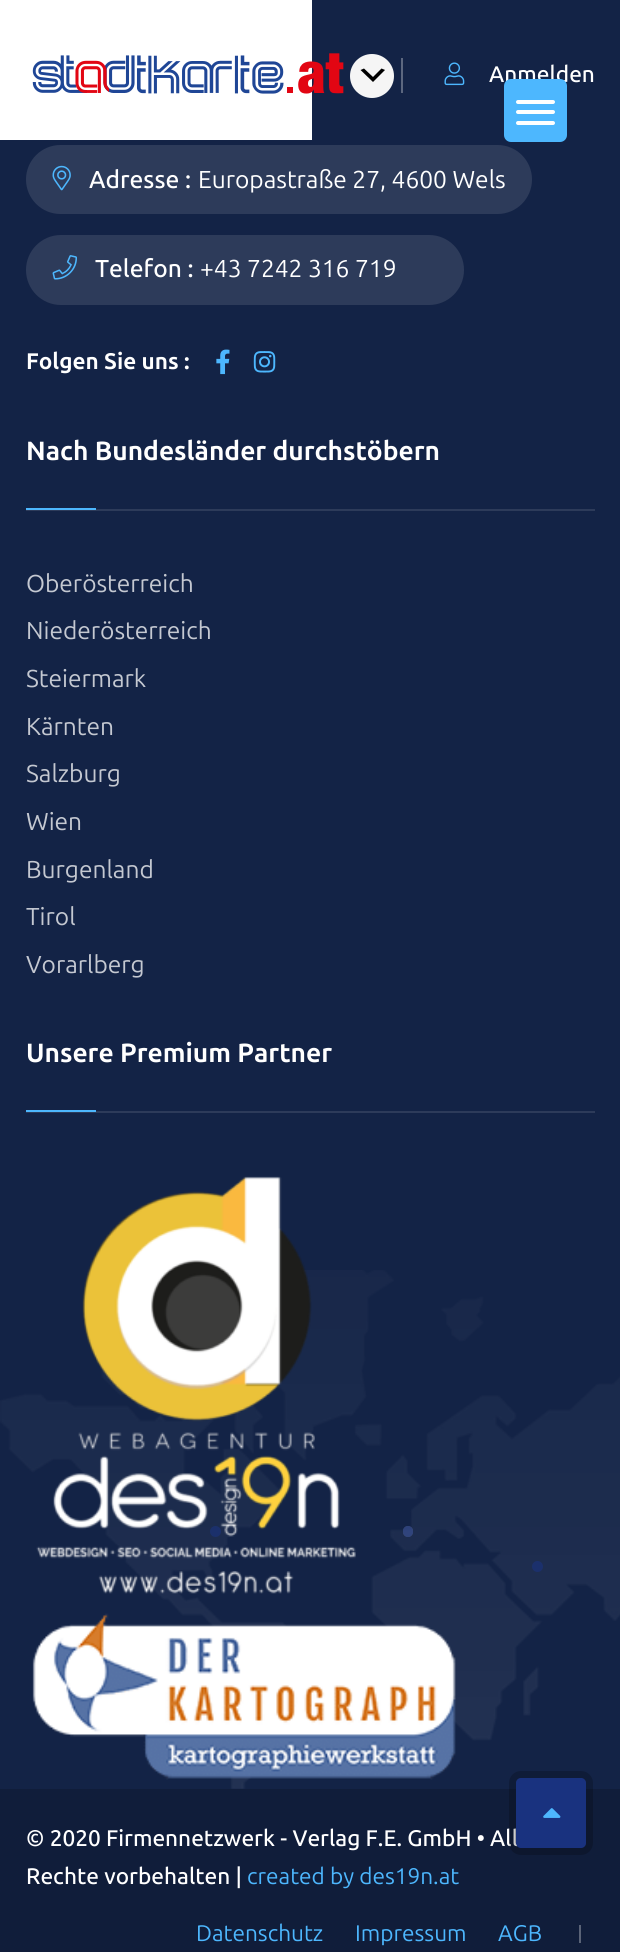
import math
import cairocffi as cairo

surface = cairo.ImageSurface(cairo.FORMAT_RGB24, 620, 1952)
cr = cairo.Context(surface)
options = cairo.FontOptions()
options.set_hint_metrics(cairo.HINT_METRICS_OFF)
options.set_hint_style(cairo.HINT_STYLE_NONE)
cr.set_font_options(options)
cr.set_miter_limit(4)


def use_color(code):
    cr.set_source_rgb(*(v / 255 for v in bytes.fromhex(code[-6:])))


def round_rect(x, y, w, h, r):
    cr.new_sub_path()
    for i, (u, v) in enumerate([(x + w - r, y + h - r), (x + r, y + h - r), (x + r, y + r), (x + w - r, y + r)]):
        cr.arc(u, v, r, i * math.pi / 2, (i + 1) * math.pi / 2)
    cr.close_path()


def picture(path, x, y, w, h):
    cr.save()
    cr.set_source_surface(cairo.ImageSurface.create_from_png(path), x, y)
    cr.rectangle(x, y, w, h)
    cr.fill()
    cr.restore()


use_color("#132346")
cr.paint()
use_color("#ffffff")
cr.rectangle(0, 0, 312, 140)
cr.fill()
picture("img1.png", 32, 53, 312, 41)
use_color("#f5f5f5")
cr.arc(372, 76, 22, 0, 2 * math.pi)
cr.fill()
use_color("#000000")
cr.new_path()
cr.move_to(364, 68.5)
cr.line_to(373, 77)
cr.line_to(381.5, 68.5)
cr.line_to(385, 70)
cr.line_to(373, 82)
cr.line_to(360.5, 70)
cr.close_path()
cr.fill()
use_color("#5c677f")
cr.rectangle(401, 58, 2, 35)
cr.fill()
picture("img2.png", 444, 62, 21, 24)
cr.select_font_face("Ubuntu Medium")
cr.set_font_size(22.6)
use_color("#ffffff")
cr.move_to(489, 82)
cr.show_text("Anmelden")
use_color("#4db7fe")
round_rect(504, 79, 63, 63, 7)
cr.fill()
use_color("#ffffff")
round_rect(516, 100, 39, 4, 2)
cr.fill()
round_rect(516, 110, 39, 4, 2)
cr.fill()
round_rect(516, 121, 39, 4, 2)
cr.fill()
use_color("#2d3b5a")
round_rect(26, 145, 506, 69, 34.5)
cr.fill()
picture("img3.png", 52, 165, 19, 26)
cr.set_font_size(24.5)
use_color("#ffffff")
cr.move_to(89, 188)
cr.show_text("Adresse :")
cr.select_font_face("Ubuntu")
cr.move_to(198, 188)
cr.show_text("Europastraße 27, 4600 Wels")
use_color("#2d3b5a")
round_rect(26, 235, 438, 70, 35)
cr.fill()
picture("img4.png", 52, 255, 25, 25)
cr.select_font_face("Ubuntu Medium")
use_color("#ffffff")
cr.move_to(95, 277)
cr.show_text("Telefon :")
cr.select_font_face("Ubuntu")
cr.move_to(200, 277)
cr.show_text("+43 7242 316 719")
cr.select_font_face("Ubuntu", cairo.FONT_SLANT_NORMAL, cairo.FONT_WEIGHT_BOLD)
cr.set_font_size(22.6)
cr.move_to(26, 369)
cr.show_text("Folgen Sie uns :")
picture("img5.png", 216, 349, 14, 26)
picture("img6.png", 253, 351, 23, 22)
use_color("#2d3b5a")
cr.rectangle(26, 509, 569, 2)
cr.fill()
cr.set_font_size(26.4)
use_color("#ffffff")
cr.move_to(26, 460)
cr.show_text("Nach Bundesländer durchstöbern")
use_color("#4db7fe")
cr.rectangle(26, 508, 70, 2)
cr.fill()
cr.select_font_face("Ubuntu")
cr.set_font_size(24.5)
use_color("#c4c8d1")
cr.move_to(26, 592)
cr.show_text("Oberösterreich")
cr.move_to(26, 639)
cr.show_text("Niederösterreich")
cr.move_to(26, 687)
cr.show_text("Steiermark")
cr.move_to(26, 735)
cr.show_text("Kärnten")
cr.move_to(26, 782)
cr.show_text("Salzburg")
cr.move_to(26, 830)
cr.show_text("Wien")
cr.move_to(26, 878)
cr.show_text("Burgenland")
cr.move_to(26, 925)
cr.show_text("Tirol")
cr.move_to(26, 973)
cr.show_text("Vorarlberg")
use_color("#2d3b5a")
cr.rectangle(26, 1111, 569, 2)
cr.fill()
cr.select_font_face("Ubuntu", cairo.FONT_SLANT_NORMAL, cairo.FONT_WEIGHT_BOLD)
cr.set_font_size(26.4)
use_color("#ffffff")
cr.move_to(26, 1062)
cr.show_text("Unsere Premium Partner")
use_color("#4db7fe")
cr.rectangle(26, 1110, 70, 2)
cr.fill()
picture("img9.png", 0, 1270, 620, 519)
use_color("#1b306b")
cr.arc(215.5, 1531.5, 5.5, 0, 2 * math.pi)
cr.fill()
picture("img7.png", 36, 1176, 320, 418)
picture("img8.png", 32, 1613, 424, 167)
cr.set_source_rgba(1, 1, 1, 0.24)
round_rect(403, 1526, 10, 11, 5)
cr.fill()
cr.set_source_rgba(0.098, 0.196, 0.498, 0.6)
round_rect(403, 1526, 10, 11, 5)
cr.fill()
use_color("#1b306c")
cr.arc(537.5, 1566.5, 5.5, 0, 2 * math.pi)
cr.fill()
use_color("#101d3a")
cr.rectangle(0, 1789, 620, 163)
cr.fill()
cr.select_font_face("Ubuntu Medium")
cr.set_font_size(22.6)
use_color("#ffffff")
cr.move_to(26, 1846)
cr.show_text("© 2020 Firmennetzwerk - Verlag F.E. GmbH • All")
cr.move_to(26, 1884)
cr.show_text("Rechte vorbehalten |")
cr.select_font_face("Ubuntu")
use_color("#4db7fe")
cr.move_to(247, 1884)
cr.show_text("created by des19n.at")
cr.move_to(196, 1941)
cr.show_text("Datenschutz")
cr.move_to(355, 1941)
cr.show_text("Impressum")
cr.move_to(498, 1941)
cr.show_text("AGB")
use_color("#5a6377")
cr.rectangle(579, 1925, 2, 18)
cr.fill()
round_rect(512.5, 1774.5, 77, 77, 8.5)
cr.set_source_rgba(0, 0, 0, 0.2)
cr.set_line_width(7)
cr.stroke()
use_color("#19327f")
round_rect(516, 1778, 70, 70, 5)
cr.fill()
picture("img10.png", 543, 1808, 18, 10)
surface.write_to_png("result.png")
